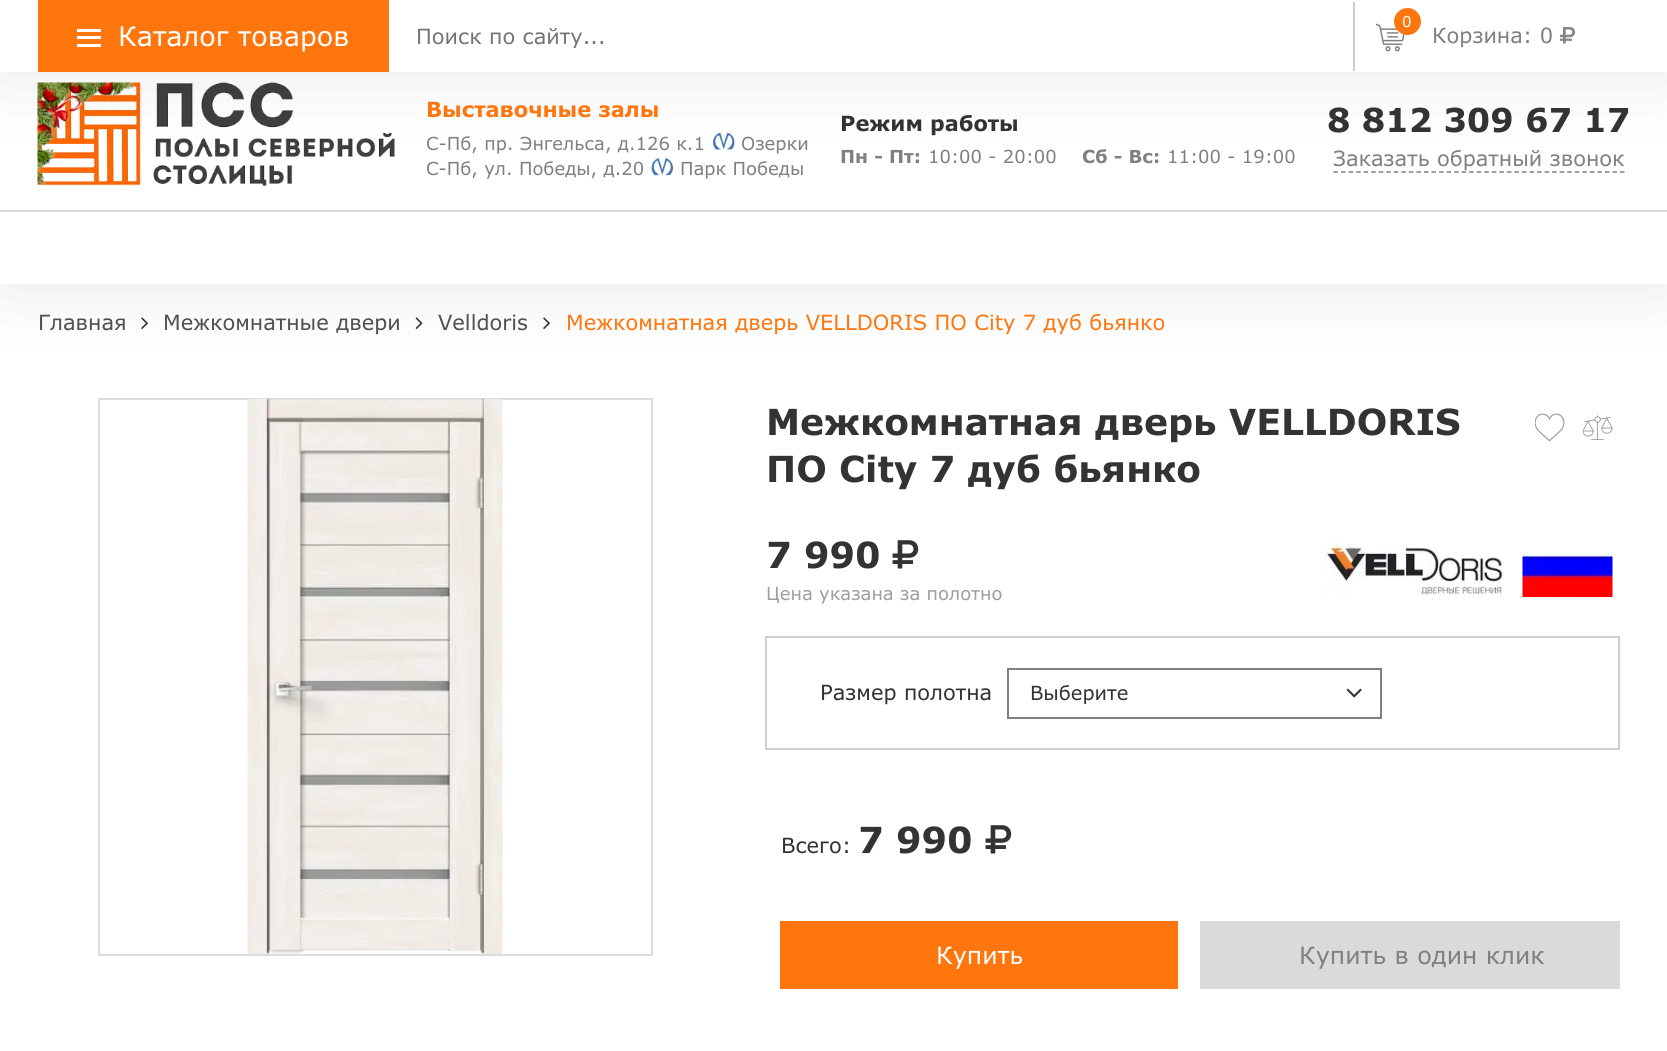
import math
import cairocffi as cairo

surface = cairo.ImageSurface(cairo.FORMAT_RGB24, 1667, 1051)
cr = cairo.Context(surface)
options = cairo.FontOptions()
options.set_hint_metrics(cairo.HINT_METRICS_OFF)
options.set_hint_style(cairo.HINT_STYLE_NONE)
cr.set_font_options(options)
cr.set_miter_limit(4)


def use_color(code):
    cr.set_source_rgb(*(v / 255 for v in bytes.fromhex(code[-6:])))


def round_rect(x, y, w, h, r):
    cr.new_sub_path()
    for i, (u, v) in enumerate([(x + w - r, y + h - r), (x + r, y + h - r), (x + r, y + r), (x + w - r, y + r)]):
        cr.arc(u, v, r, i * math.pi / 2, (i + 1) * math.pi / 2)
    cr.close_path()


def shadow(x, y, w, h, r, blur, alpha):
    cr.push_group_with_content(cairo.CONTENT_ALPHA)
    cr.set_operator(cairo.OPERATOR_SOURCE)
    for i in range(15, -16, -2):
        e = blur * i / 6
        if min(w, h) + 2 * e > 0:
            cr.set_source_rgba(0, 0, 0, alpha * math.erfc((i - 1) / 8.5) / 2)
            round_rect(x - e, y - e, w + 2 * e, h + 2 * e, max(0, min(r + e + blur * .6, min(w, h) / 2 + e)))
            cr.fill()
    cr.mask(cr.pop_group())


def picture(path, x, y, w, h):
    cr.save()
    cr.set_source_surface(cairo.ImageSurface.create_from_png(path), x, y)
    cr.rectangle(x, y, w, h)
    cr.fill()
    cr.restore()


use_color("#ffffff")
cr.paint()
cr.save()
cr.set_fill_rule(cairo.FILL_RULE_EVEN_ODD)
cr.new_path()
cr.move_to(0, 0)
cr.line_to(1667, 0)
cr.line_to(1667, 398)
cr.line_to(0, 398)
cr.close_path()
cr.move_to(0, 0)
cr.line_to(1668, 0)
cr.line_to(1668, 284)
cr.line_to(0, 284)
cr.close_path()
cr.clip()
use_color("#000000")
shadow(0, 0, 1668, 284, 0, 37.5, 0.1)
cr.restore()
picture("img3.png", 37, 82, 358, 104)
picture("img4.png", 712, 132, 23, 18)
picture("img5.png", 651, 157, 23, 19)
cr.new_path()
cr.move_to(1333.5, 172)
cr.line_to(1624.5, 172)
use_color("#808080")
cr.set_line_width(1.5)
cr.set_dash([4.5, 3.04])
cr.stroke()
use_color("#000000")
shadow(0, 0, 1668, 72, 0, 37.5, 0.1)
use_color("#ffffff")
cr.rectangle(0, 0, 1667, 72)
cr.fill()
use_color("#ff760e")
cr.rectangle(38, 0, 351, 72)
cr.fill()
use_color("#ffffff")
cr.rectangle(77, 36, 24, 3)
cr.fill()
cr.rectangle(77, 29, 24, 3)
cr.fill()
cr.rectangle(77, 44, 24, 3)
cr.fill()
cr.select_font_face("Verdana")
cr.set_font_size(27)
cr.move_to(118, 46)
cr.show_text("Каталог товаров")
cr.save()
cr.rectangle(417, 23, 860, 25)
cr.clip()
cr.set_font_size(21)
use_color("#757575")
cr.move_to(416, 44)
cr.show_text("Поиск по сайту...")
cr.restore()
use_color("#cdcdcd")
cr.rectangle(1353, 2, 2, 69)
cr.fill()
picture("img1.png", 1376, 23, 29, 29)
use_color("#ff760e")
cr.arc(1407.5, 21.5, 13.5, 0, 2 * math.pi)
cr.fill()
cr.set_font_size(15)
use_color("#ffffff")
cr.move_to(1402, 27)
cr.show_text("0")
cr.set_font_size(21)
use_color("#808080")
cr.move_to(1432, 43)
cr.show_text("Корзина: 0")
picture("img2.png", 1560, 27, 15, 17)
use_color("#dbdbdb")
cr.rectangle(0, 210, 1667, 2)
cr.fill()
cr.select_font_face("Verdana", cairo.FONT_SLANT_NORMAL, cairo.FONT_WEIGHT_BOLD)
use_color("#ff760e")
cr.move_to(426, 117)
cr.show_text("Выставочные залы")
cr.select_font_face("Verdana")
cr.set_font_size(18)
use_color("#808080")
cr.move_to(426, 150)
cr.show_text("С-Пб, пр. Энгельса, д.126 к.1")
cr.move_to(741, 150)
cr.show_text("Озерки")
cr.move_to(426, 175)
cr.show_text("С-Пб, ул. Победы, д.20")
cr.move_to(680, 175)
cr.show_text("Парк Победы")
cr.select_font_face("Verdana", cairo.FONT_SLANT_NORMAL, cairo.FONT_WEIGHT_BOLD)
cr.set_font_size(21)
use_color("#333333")
cr.move_to(840, 131)
cr.show_text("Режим работы")
cr.set_font_size(18)
use_color("#808080")
cr.move_to(840, 163)
cr.show_text("Пн - Пт:")
cr.select_font_face("Verdana")
cr.move_to(928, 163)
cr.show_text("10:00 - 20:00")
cr.select_font_face("Verdana", cairo.FONT_SLANT_NORMAL, cairo.FONT_WEIGHT_BOLD)
cr.move_to(1082, 163)
cr.show_text("Сб - Вс:")
cr.select_font_face("Verdana")
cr.move_to(1167, 163)
cr.show_text("11:00 - 19:00")
cr.select_font_face("Verdana", cairo.FONT_SLANT_NORMAL, cairo.FONT_WEIGHT_BOLD)
cr.set_font_size(33)
use_color("#333333")
cr.move_to(1327, 132)
cr.show_text("8 812 309 67 17")
cr.select_font_face("Verdana")
cr.set_font_size(21)
use_color("#808080")
cr.move_to(1333, 166)
cr.show_text("Заказать обратный звонок")
use_color("#505050")
cr.move_to(38, 330)
cr.show_text("Главная")
picture("img6.png", 141, 317, 7, 12)
cr.move_to(163, 330)
cr.show_text("Межкомнатные двери")
picture("img7.png", 415, 317, 8, 12)
cr.move_to(438, 330)
cr.show_text("Velldoris")
picture("img6.png", 543, 317, 7, 12)
use_color("#ff760e")
cr.move_to(566, 330)
cr.show_text("Межкомнатная дверь VELLDORIS ПО City 7 дуб бьянко")
cr.rectangle(99, 399, 553, 556)
use_color("#dedbdb")
cr.set_line_width(2)
cr.set_dash([])
cr.stroke()
picture("img8.png", 247, 399, 256, 555)
cr.select_font_face("Verdana", cairo.FONT_SLANT_NORMAL, cairo.FONT_WEIGHT_BOLD)
cr.set_font_size(36)
use_color("#333333")
cr.move_to(766, 435)
cr.show_text("Межкомнатная дверь VELLDORIS")
cr.move_to(766, 482)
cr.show_text("ПО City 7 дуб бьянко")
picture("img9.png", 1535, 413, 30, 29)
picture("img10.png", 1583, 415, 30, 25)
cr.move_to(766, 568)
cr.show_text("7 990")
picture("img11.png", 892, 540, 27, 29)
cr.select_font_face("Verdana")
cr.set_font_size(18)
use_color("#9e9e9e")
cr.move_to(766, 600)
cr.show_text("Цена указана за полотно")
picture("img12.png", 1323, 543, 181, 54)
picture("img13.png", 1522, 552, 91, 45)
cr.rectangle(766, 637, 853, 112)
use_color("#cecece")
cr.stroke()
cr.set_font_size(21)
use_color("#333333")
cr.move_to(820, 700)
cr.show_text("Размер полотна")
cr.rectangle(1008, 669, 373, 49)
use_color("#808080")
cr.stroke()
cr.set_font_size(19.5)
use_color("#333333")
cr.move_to(1030, 700)
cr.show_text("Выберите")
picture("img14.png", 1346, 688, 16, 10)
cr.set_font_size(21)
cr.move_to(781, 853)
cr.show_text("Всего:")
cr.select_font_face("Verdana", cairo.FONT_SLANT_NORMAL, cairo.FONT_WEIGHT_BOLD)
cr.set_font_size(36)
cr.move_to(858, 853)
cr.show_text("7 990")
picture("img11.png", 985, 825, 27, 29)
use_color("#ff760e")
cr.rectangle(780, 921, 398, 68)
cr.fill()
cr.select_font_face("Verdana")
cr.set_font_size(24)
use_color("#ffffff")
cr.move_to(936, 964)
cr.show_text("Купить")
use_color("#dadada")
cr.rectangle(1200, 921, 420, 68)
cr.fill()
use_color("#808080")
cr.move_to(1299, 964)
cr.show_text("Купить в один клик")
surface.write_to_png("result.png")
